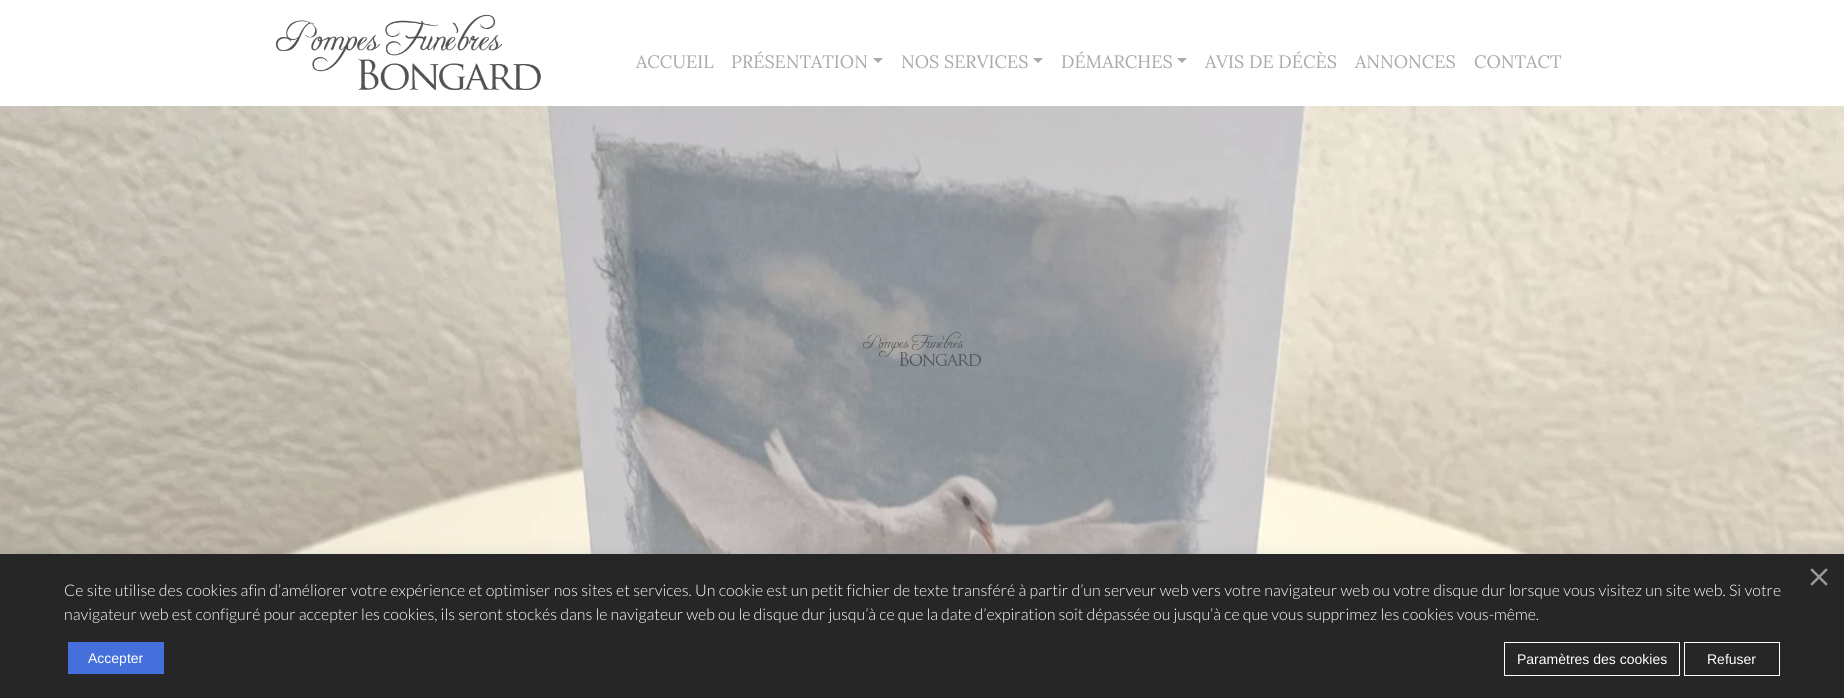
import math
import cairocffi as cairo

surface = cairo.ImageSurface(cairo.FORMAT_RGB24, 1844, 698)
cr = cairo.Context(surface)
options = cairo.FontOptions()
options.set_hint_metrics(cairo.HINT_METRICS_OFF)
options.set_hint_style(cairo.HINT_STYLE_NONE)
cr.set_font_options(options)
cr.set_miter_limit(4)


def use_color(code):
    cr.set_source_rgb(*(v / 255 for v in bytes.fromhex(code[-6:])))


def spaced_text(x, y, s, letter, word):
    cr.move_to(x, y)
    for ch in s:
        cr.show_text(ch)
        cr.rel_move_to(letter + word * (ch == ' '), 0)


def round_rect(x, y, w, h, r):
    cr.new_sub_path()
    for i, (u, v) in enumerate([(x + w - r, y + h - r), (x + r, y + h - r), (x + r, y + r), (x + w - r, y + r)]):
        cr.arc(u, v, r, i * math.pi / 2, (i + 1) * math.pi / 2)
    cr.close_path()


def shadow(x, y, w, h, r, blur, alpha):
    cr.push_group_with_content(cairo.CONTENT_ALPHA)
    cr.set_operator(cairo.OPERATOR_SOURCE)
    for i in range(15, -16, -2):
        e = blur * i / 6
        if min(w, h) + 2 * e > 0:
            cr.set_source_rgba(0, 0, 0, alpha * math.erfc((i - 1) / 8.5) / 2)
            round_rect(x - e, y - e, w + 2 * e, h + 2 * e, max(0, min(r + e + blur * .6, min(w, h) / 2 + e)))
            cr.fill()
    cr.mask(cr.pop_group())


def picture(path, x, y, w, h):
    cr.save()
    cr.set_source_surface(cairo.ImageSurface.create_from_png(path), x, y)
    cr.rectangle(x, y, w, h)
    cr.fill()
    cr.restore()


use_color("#ffffff")
cr.paint()
picture("img1.png", 275, 14, 266, 76)
cr.select_font_face("Lora")
cr.set_font_size(18)
use_color("#a9a9a9")
cr.move_to(636, 68)
cr.show_text("ACCUEIL")
cr.move_to(731, 68)
cr.show_text("PRÉSENTATION")
cr.new_path()
cr.move_to(873, 58)
cr.line_to(883, 58)
cr.line_to(878, 63)
cr.close_path()
cr.fill()
cr.move_to(901, 68)
cr.show_text("NOS SERVICES")
cr.new_path()
cr.move_to(1033, 58)
cr.line_to(1043, 58)
cr.line_to(1038, 63)
cr.close_path()
cr.fill()
cr.move_to(1061, 68)
cr.show_text("DÉMARCHES")
cr.new_path()
cr.move_to(1177, 58)
cr.line_to(1187, 58)
cr.line_to(1182, 63)
cr.close_path()
cr.fill()
cr.move_to(1205, 68)
cr.show_text("AVIS DE DÉCÈS")
cr.move_to(1355, 68)
cr.show_text("ANNONCES")
cr.move_to(1474, 68)
cr.show_text("CONTACT")
picture("img2.png", 0, 106, 1844, 448)
use_color("#042a4b")
shadow(0, 556, 1844, 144, 0, 8.5, 0.11)
use_color("#262626")
cr.rectangle(0, 554, 1844, 144)
cr.fill()
picture("img3.png", 1810, 568, 18, 18)
cr.select_font_face("Lato Light")
cr.set_font_size(16)
use_color("#ffffff")
spaced_text(64, 596, "Ce site utilise des cookies afin d’améliorer votre expérience et optimiser nos sites et services. Un cookie est un petit fichier de texte transféré à partir d’un serveur web vers votre navigateur web ou votre disque dur lorsque vous visitez un site web. Si votre", 0, 0.25)
cr.move_to(64, 620)
cr.show_text("navigateur web est configuré pour accepter les cookies, ils seront stockés dans le navigateur web ou le disque dur jusqu’à ce que la date d’expiration soit dépassée ou jusqu’à ce que vous supprimez les cookies vous-même.")
use_color("#4570dc")
cr.rectangle(68, 642, 96, 32)
cr.fill()
cr.select_font_face("Liberation Sans")
cr.set_font_size(14)
use_color("#ffffff")
cr.move_to(88, 663)
cr.show_text("Accepter")
cr.rectangle(1504.5, 642.5, 175, 33)
cr.set_line_width(1)
cr.stroke()
cr.move_to(1517, 664)
cr.show_text("Paramètres des cookies")
cr.rectangle(1684.5, 642.5, 95, 33)
cr.stroke()
cr.move_to(1707, 664)
cr.show_text("Refuser")
picture("img4.png", 862, 332, 119, 34)
surface.write_to_png("result.png")
